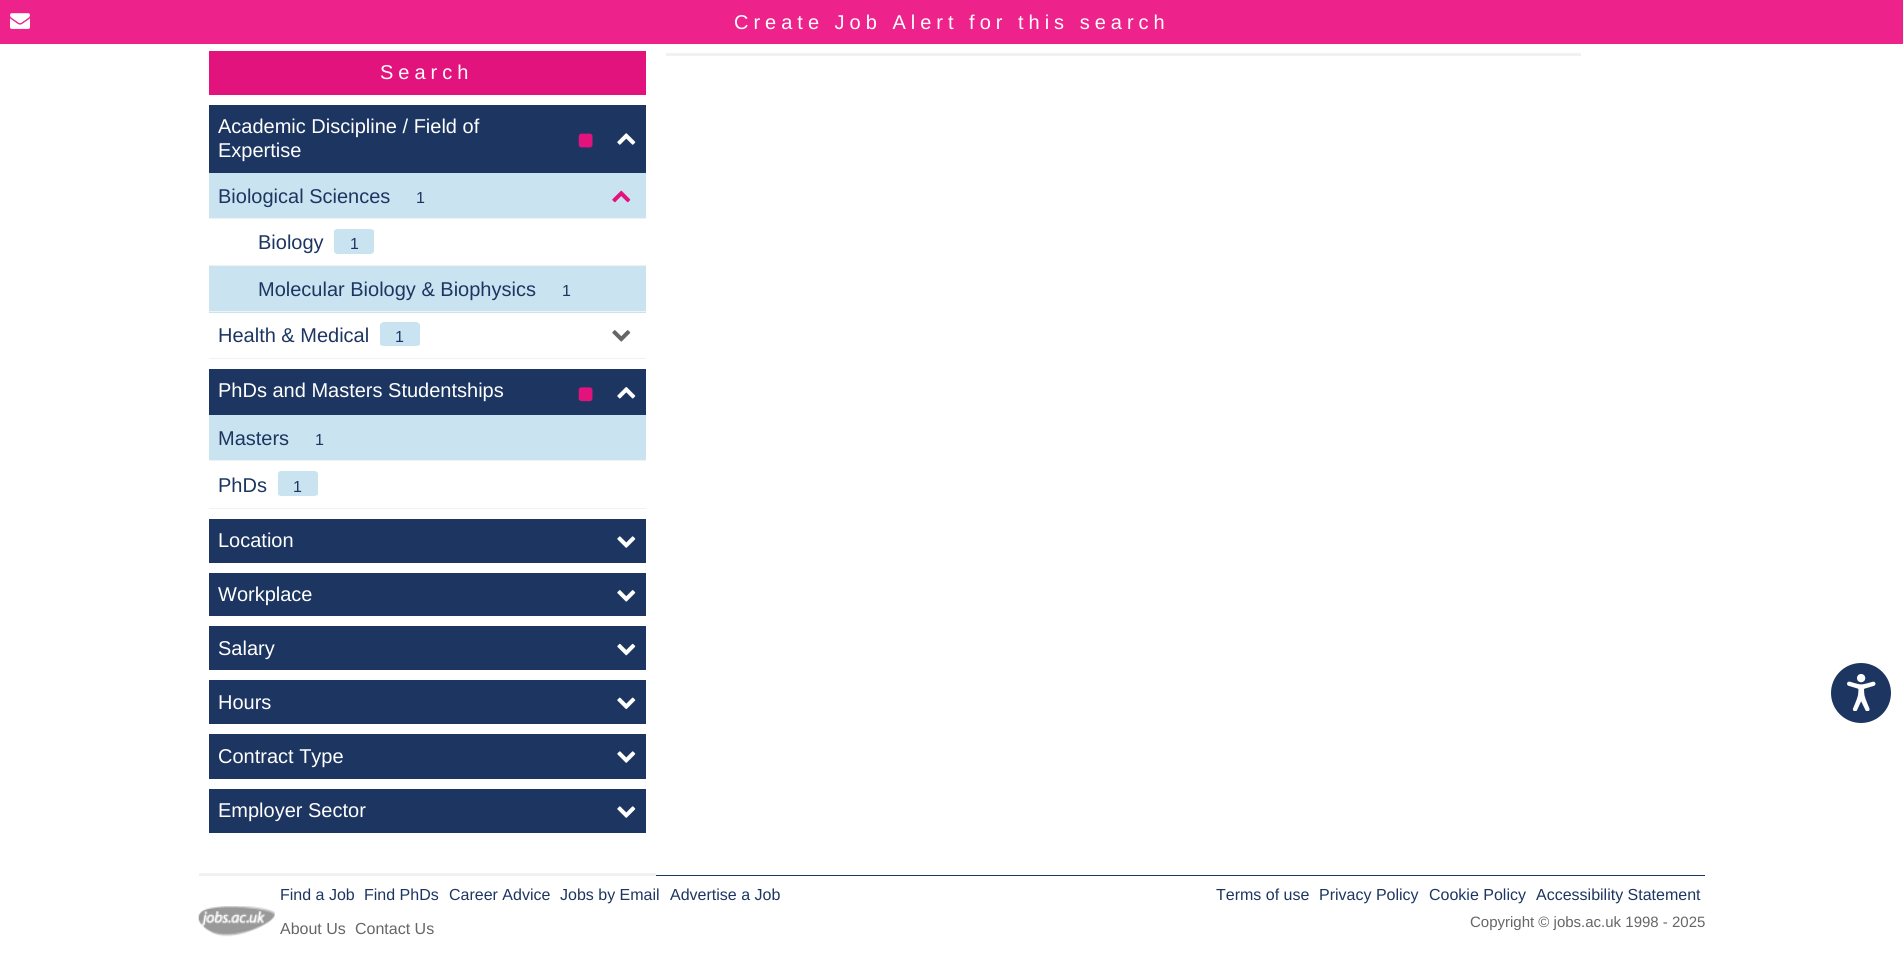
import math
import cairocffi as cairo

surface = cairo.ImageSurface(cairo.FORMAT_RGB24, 1903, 953)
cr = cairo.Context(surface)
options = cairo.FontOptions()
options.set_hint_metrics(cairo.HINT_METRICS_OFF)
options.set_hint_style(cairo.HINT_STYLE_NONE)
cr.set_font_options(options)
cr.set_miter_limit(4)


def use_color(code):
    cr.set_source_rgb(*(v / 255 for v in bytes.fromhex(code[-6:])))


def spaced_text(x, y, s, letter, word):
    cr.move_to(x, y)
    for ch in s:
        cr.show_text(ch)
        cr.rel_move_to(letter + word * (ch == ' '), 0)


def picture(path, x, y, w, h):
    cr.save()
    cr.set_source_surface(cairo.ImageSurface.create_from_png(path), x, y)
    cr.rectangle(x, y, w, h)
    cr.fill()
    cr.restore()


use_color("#ffffff")
cr.paint()
use_color("#ed238b")
cr.rectangle(0, 0, 1903, 44)
cr.fill()
picture("img1.png", 10, 13, 20, 16)
cr.select_font_face("Liberation Sans")
cr.set_font_size(20)
use_color("#ffffff")
spaced_text(734, 29, "Create Job Alert for this search", 5, 0)
use_color("#f1f1f1")
cr.rectangle(666, 53, 915, 3)
cr.fill()
cr.rectangle(199, 873, 457, 3)
cr.fill()
use_color("#e3137e")
cr.rectangle(209, 51, 437, 44)
cr.fill()
use_color("#ffffff")
spaced_text(380, 79, "Search", 5, 0)
use_color("#1d3661")
cr.rectangle(209, 105, 437, 68)
cr.fill()
use_color("#ffffff")
cr.move_to(218, 133)
cr.show_text("Academic Discipline / Field of")
cr.move_to(218, 157)
cr.show_text("Expertise")
picture("img2.png", 578, 133, 15, 15)
picture("img3.png", 617, 133, 19, 12)
use_color("#c9e4f0")
cr.rectangle(209, 173, 437, 45)
cr.fill()
use_color("#f1f1f1")
cr.rectangle(209, 218, 437, 1)
cr.fill()
use_color("#1d3661")
cr.move_to(218, 203)
cr.show_text("Biological Sciences")
cr.set_font_size(16)
cr.move_to(416, 203)
cr.show_text("1")
picture("img4.png", 612, 190, 19, 13)
use_color("#f1f1f1")
cr.rectangle(209, 265, 437, 1)
cr.fill()
cr.set_font_size(20)
use_color("#1d3661")
cr.move_to(258, 249)
cr.show_text("Biology")
use_color("#c9e4f0")
cr.new_path()
cr.move_to(338, 229)
cr.line_to(370, 229)
cr.curve_to(372, 229, 374, 230, 374, 231)
cr.line_to(374, 251)
cr.curve_to(374, 253, 372, 254, 370, 254)
cr.line_to(338, 254)
cr.curve_to(336, 254, 334, 253, 334, 251)
cr.line_to(334, 231)
cr.curve_to(334, 230, 336, 229, 338, 229)
cr.close_path()
cr.fill()
cr.set_font_size(16)
use_color("#1d3661")
cr.move_to(350, 249)
cr.show_text("1")
use_color("#c9e4f0")
cr.rectangle(209, 266, 437, 47)
cr.fill()
use_color("#f1f1f1")
cr.rectangle(209, 311, 437, 1)
cr.fill()
cr.set_font_size(20)
use_color("#1d3661")
cr.move_to(258, 296)
cr.show_text("Molecular Biology & Biophysics")
cr.set_font_size(16)
cr.move_to(562, 296)
cr.show_text("1")
use_color("#f1f1f1")
cr.rectangle(209, 358, 437, 1)
cr.fill()
cr.set_font_size(20)
use_color("#1d3661")
cr.move_to(218, 342)
cr.show_text("Health & Medical")
use_color("#c9e4f0")
cr.new_path()
cr.move_to(384, 322)
cr.line_to(416, 322)
cr.curve_to(418, 322, 420, 324, 420, 325)
cr.line_to(420, 344)
cr.curve_to(420, 345, 418, 346, 416, 346)
cr.line_to(384, 346)
cr.curve_to(382, 346, 380, 345, 380, 344)
cr.line_to(380, 325)
cr.curve_to(380, 324, 382, 322, 384, 322)
cr.close_path()
cr.fill()
cr.set_font_size(16)
use_color("#1d3661")
cr.move_to(395, 342)
cr.show_text("1")
picture("img5.png", 612, 330, 19, 12)
cr.rectangle(209, 369, 437, 46)
cr.fill()
cr.set_font_size(20)
use_color("#ffffff")
cr.move_to(218, 397)
cr.show_text("PhDs and Masters Studentships")
picture("img6.png", 578, 387, 15, 15)
picture("img7.png", 617, 387, 19, 12)
use_color("#c9e4f0")
cr.rectangle(209, 415, 437, 45)
cr.fill()
use_color("#f1f1f1")
cr.rectangle(209, 460, 437, 1)
cr.fill()
use_color("#1d3661")
cr.move_to(218, 445)
cr.show_text("Masters")
cr.set_font_size(16)
cr.move_to(315, 445)
cr.show_text("1")
use_color("#f1f1f1")
cr.rectangle(209, 508, 437, 1)
cr.fill()
cr.set_font_size(20)
use_color("#1d3661")
cr.move_to(218, 492)
cr.show_text("PhDs")
use_color("#c9e4f0")
cr.new_path()
cr.move_to(282, 471)
cr.line_to(314, 471)
cr.curve_to(316, 471, 318, 472, 318, 474)
cr.line_to(318, 494)
cr.curve_to(318, 495, 316, 496, 314, 496)
cr.line_to(282, 496)
cr.curve_to(279, 496, 278, 495, 278, 494)
cr.line_to(278, 474)
cr.curve_to(278, 472, 279, 471, 282, 471)
cr.close_path()
cr.fill()
cr.set_font_size(16)
use_color("#1d3661")
cr.move_to(293, 492)
cr.show_text("1")
cr.rectangle(209, 519, 437, 44)
cr.fill()
cr.set_font_size(20)
use_color("#ffffff")
cr.move_to(218, 547)
cr.show_text("Location")
picture("img8.png", 617, 536, 19, 12)
use_color("#1d3661")
cr.rectangle(209, 573, 437, 43)
cr.fill()
use_color("#ffffff")
cr.move_to(218, 601)
cr.show_text("Workplace")
picture("img9.png", 617, 590, 19, 12)
use_color("#1d3661")
cr.rectangle(209, 626, 437, 44)
cr.fill()
use_color("#ffffff")
cr.move_to(218, 655)
cr.show_text("Salary")
picture("img10.png", 617, 643, 19, 13)
use_color("#1d3661")
cr.rectangle(209, 680, 437, 44)
cr.fill()
use_color("#ffffff")
cr.move_to(218, 709)
cr.show_text("Hours")
picture("img11.png", 617, 697, 19, 13)
use_color("#1d3661")
cr.rectangle(209, 734, 437, 45)
cr.fill()
use_color("#ffffff")
cr.move_to(218, 763)
cr.show_text("Contract Type")
picture("img8.png", 617, 751, 19, 12)
use_color("#1d3661")
cr.rectangle(209, 789, 437, 44)
cr.fill()
use_color("#ffffff")
cr.move_to(218, 817)
cr.show_text("Employer Sector")
picture("img8.png", 617, 806, 19, 12)
use_color("#1d3661")
cr.rectangle(656, 875, 1049, 1)
cr.fill()
picture("img12.png", 198, 906, 77, 31)
cr.set_font_size(16)
cr.move_to(280, 900)
cr.show_text("Find a Job")
cr.move_to(364, 900)
cr.show_text("Find PhDs")
cr.move_to(449, 900)
cr.show_text("Career Advice")
cr.move_to(560, 900)
cr.show_text("Jobs by Email")
cr.move_to(670, 900)
cr.show_text("Advertise a Job")
use_color("#666666")
cr.move_to(280, 934)
cr.show_text("About Us")
cr.move_to(355, 934)
cr.show_text("Contact Us")
use_color("#1d3661")
cr.move_to(1216, 900)
cr.show_text("Terms of use")
cr.move_to(1319, 900)
cr.show_text("Privacy Policy")
cr.move_to(1429, 900)
cr.show_text("Cookie Policy")
cr.move_to(1536, 900)
cr.show_text("Accessibility Statement")
cr.set_font_size(15)
use_color("#666666")
cr.move_to(1470, 927)
cr.show_text("Copyright © jobs.ac.uk 1998 - 2025")
use_color("#1d3661")
cr.new_path()
cr.arc(1861, 693, 30, 0, 2 * math.pi)
cr.fill()
picture("img13.png", 1847, 674, 29, 37)
surface.write_to_png("result.png")
